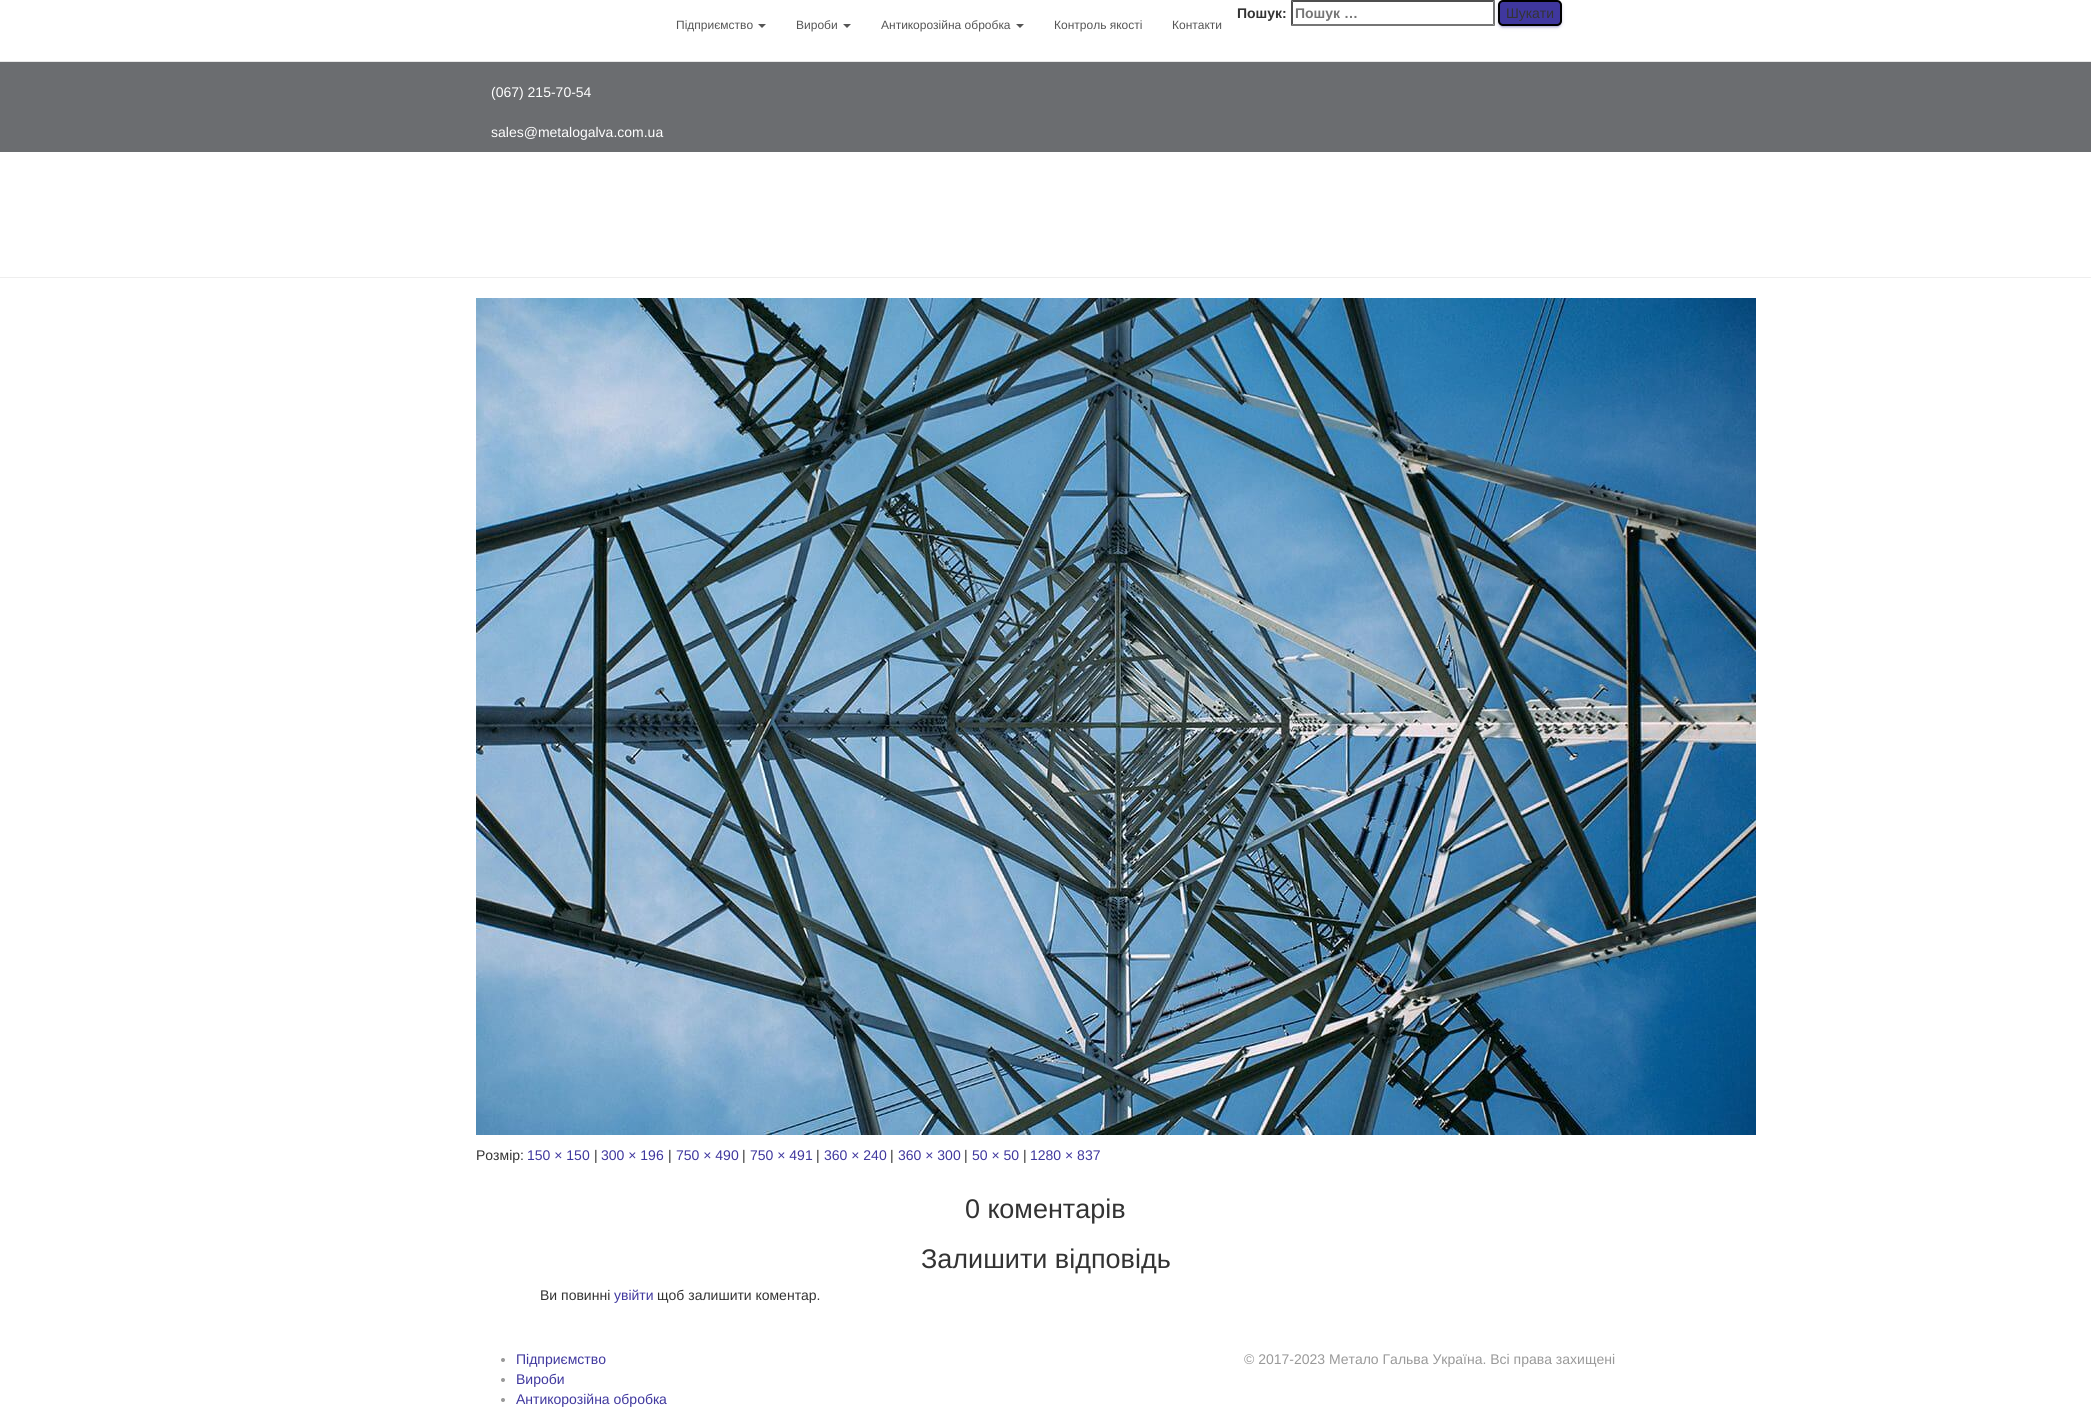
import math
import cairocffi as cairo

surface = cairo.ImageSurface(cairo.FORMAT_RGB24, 2091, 1415)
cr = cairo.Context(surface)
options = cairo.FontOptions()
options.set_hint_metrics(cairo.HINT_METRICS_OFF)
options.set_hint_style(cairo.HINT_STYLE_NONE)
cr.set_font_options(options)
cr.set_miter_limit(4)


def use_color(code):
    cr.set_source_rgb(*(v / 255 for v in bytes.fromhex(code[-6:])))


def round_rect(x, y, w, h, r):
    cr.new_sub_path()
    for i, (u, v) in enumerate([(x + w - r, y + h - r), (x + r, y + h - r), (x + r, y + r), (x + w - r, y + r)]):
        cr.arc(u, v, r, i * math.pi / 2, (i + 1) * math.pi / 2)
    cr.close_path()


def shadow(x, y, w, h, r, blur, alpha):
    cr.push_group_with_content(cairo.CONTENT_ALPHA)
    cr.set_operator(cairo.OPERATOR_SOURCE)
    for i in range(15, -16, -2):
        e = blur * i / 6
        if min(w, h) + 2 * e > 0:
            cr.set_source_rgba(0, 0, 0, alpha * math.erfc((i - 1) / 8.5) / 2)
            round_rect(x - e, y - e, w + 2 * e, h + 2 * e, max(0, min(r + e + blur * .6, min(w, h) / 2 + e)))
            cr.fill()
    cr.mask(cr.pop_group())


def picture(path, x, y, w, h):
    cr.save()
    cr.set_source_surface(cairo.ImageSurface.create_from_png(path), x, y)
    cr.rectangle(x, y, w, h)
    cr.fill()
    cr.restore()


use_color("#ffffff")
cr.paint()
use_color("#e7e7e7")
cr.rectangle(0, 61, 2091, 1)
cr.fill()
cr.select_font_face("Liberation Sans", cairo.FONT_SLANT_NORMAL, cairo.FONT_WEIGHT_BOLD)
cr.set_font_size(14)
use_color("#333333")
cr.move_to(1237, 18)
cr.show_text("Пошук:")
use_color("#4f4f4f")
cr.new_path()
cr.move_to(1291, 0)
cr.line_to(1495, 0)
cr.line_to(1493, 2)
cr.line_to(1293, 2)
cr.close_path()
cr.fill()
use_color("#767676")
cr.new_path()
cr.move_to(1495, 0)
cr.line_to(1495, 26)
cr.line_to(1493, 24)
cr.line_to(1493, 2)
cr.close_path()
cr.fill()
cr.new_path()
cr.move_to(1495, 26)
cr.line_to(1291, 26)
cr.line_to(1293, 24)
cr.line_to(1493, 24)
cr.close_path()
cr.fill()
use_color("#4f4f4f")
cr.new_path()
cr.move_to(1291, 26)
cr.line_to(1291, 0)
cr.line_to(1293, 2)
cr.line_to(1293, 24)
cr.close_path()
cr.fill()
use_color("#757575")
cr.move_to(1295, 18)
cr.show_text("Пошук …")
use_color("#3f379e")
shadow(1498, 1, 64, 26, 5, 2.5, 0.12)
shadow(1500, 5, 60, 22, 3, 0.5, 0.2)
shadow(1498, 2, 64, 26, 5, 1, 0.14)
use_color("#3f379e")
round_rect(1499, 1, 62, 24, 4)
cr.fill_preserve()
use_color("#000000")
cr.stroke()
cr.select_font_face("Liberation Sans")
use_color("#333333")
cr.move_to(1506, 18)
cr.show_text("Шукати")
cr.set_font_size(12)
use_color("#555555")
cr.move_to(676, 29)
cr.show_text("Підприємство")
cr.new_path()
cr.move_to(758, 24)
cr.line_to(766, 24)
cr.line_to(762, 28)
cr.close_path()
cr.fill()
cr.move_to(796, 29)
cr.show_text("Вироби")
cr.new_path()
cr.move_to(843, 24)
cr.line_to(851, 24)
cr.line_to(847, 28)
cr.close_path()
cr.fill()
cr.move_to(881, 29)
cr.show_text("Антикорозійна обробка")
cr.new_path()
cr.move_to(1016, 24)
cr.line_to(1024, 24)
cr.line_to(1020, 28)
cr.close_path()
cr.fill()
cr.move_to(1054, 29)
cr.show_text("Контроль якості")
cr.move_to(1172, 29)
cr.show_text("Контакти")
use_color("#6b6d70")
cr.rectangle(0, 62, 2091, 90)
cr.fill()
cr.set_font_size(14)
use_color("#ffffff")
cr.move_to(491, 97)
cr.show_text("(067) 215-70-54")
cr.move_to(491, 137)
cr.show_text("sales@metalogalva.com.ua")
use_color("#eeeeee")
cr.rectangle(0, 277, 2091, 1)
cr.fill()
picture("img1.png", 476, 298, 1280, 837)
use_color("#333333")
cr.move_to(476, 1160)
cr.show_text("Розмір:")
use_color("#3f379e")
cr.move_to(527, 1160)
cr.show_text("150 × 150")
use_color("#333333")
cr.move_to(594, 1160)
cr.show_text("|")
use_color("#3f379e")
cr.move_to(601, 1160)
cr.show_text("300 × 196")
use_color("#333333")
cr.move_to(668, 1160)
cr.show_text("|")
use_color("#3f379e")
cr.move_to(676, 1160)
cr.show_text("750 × 490")
use_color("#333333")
cr.move_to(742, 1160)
cr.show_text("|")
use_color("#3f379e")
cr.move_to(750, 1160)
cr.show_text("750 × 491")
use_color("#333333")
cr.move_to(816, 1160)
cr.show_text("|")
use_color("#3f379e")
cr.move_to(824, 1160)
cr.show_text("360 × 240")
use_color("#333333")
cr.move_to(890, 1160)
cr.show_text("|")
use_color("#3f379e")
cr.move_to(898, 1160)
cr.show_text("360 × 300")
use_color("#333333")
cr.move_to(964, 1160)
cr.show_text("|")
use_color("#3f379e")
cr.move_to(972, 1160)
cr.show_text("50 × 50")
use_color("#333333")
cr.move_to(1023, 1160)
cr.show_text("|")
use_color("#3f379e")
cr.move_to(1030, 1160)
cr.show_text("1280 × 837")
cr.set_font_size(27)
use_color("#333333")
cr.move_to(965, 1218)
cr.show_text("0 коментарів")
cr.move_to(921, 1268)
cr.show_text("Залишити відповідь")
cr.set_font_size(14)
cr.move_to(540, 1300)
cr.show_text("Ви повинні")
use_color("#3f379e")
cr.move_to(614, 1300)
cr.show_text("увійти")
use_color("#333333")
cr.move_to(657, 1300)
cr.show_text("щоб залишити коментар.")
use_color("#999999")
cr.new_path()
cr.arc(503, 1360, 2, 0, 2 * math.pi)
cr.fill()
use_color("#3f379e")
cr.move_to(516, 1364)
cr.show_text("Підприємство")
use_color("#999999")
cr.new_path()
cr.arc(503, 1380, 2, 0, 2 * math.pi)
cr.fill()
use_color("#3f379e")
cr.move_to(516, 1384)
cr.show_text("Вироби")
use_color("#999999")
cr.new_path()
cr.arc(503, 1400, 2, 0, 2 * math.pi)
cr.fill()
use_color("#3f379e")
cr.move_to(516, 1404)
cr.show_text("Антикорозійна обробка")
use_color("#999999")
cr.move_to(1244, 1364)
cr.show_text("© 2017-2023 Метало Гальва Україна. Всі права захищені")
surface.write_to_png("result.png")
